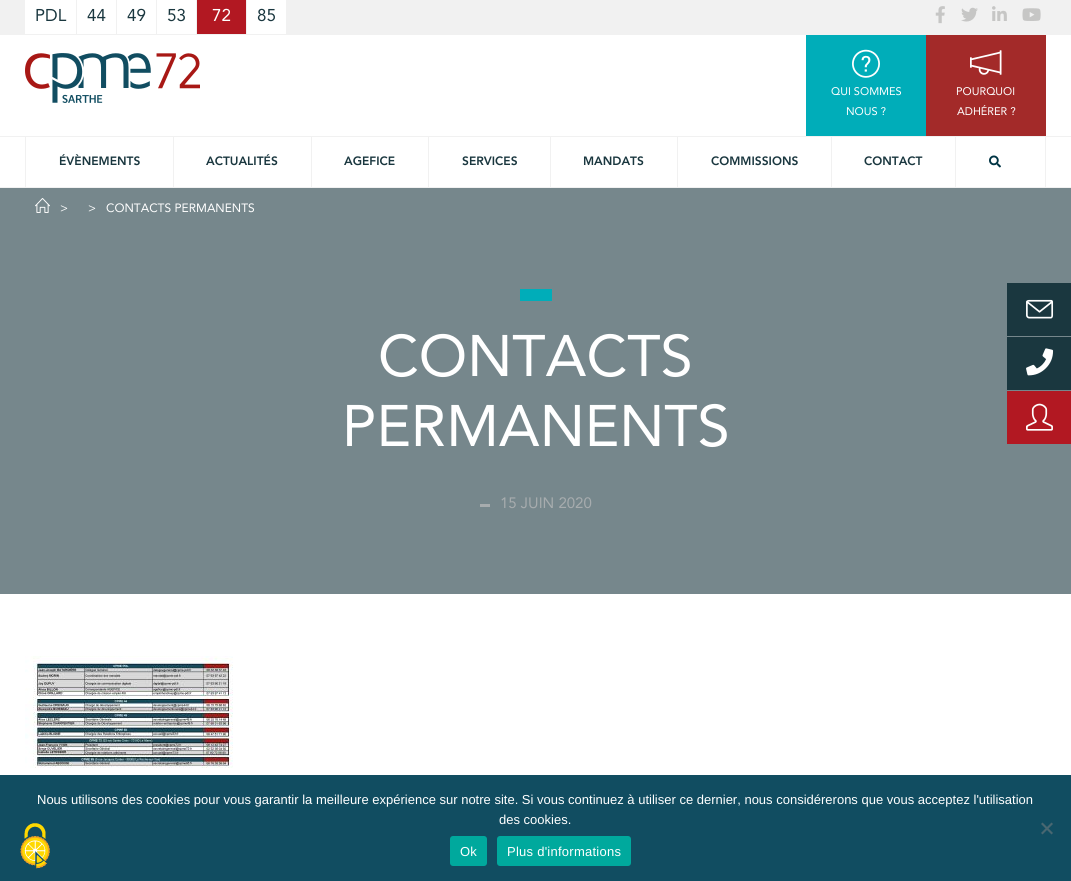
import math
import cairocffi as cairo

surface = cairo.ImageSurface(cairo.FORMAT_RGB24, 1071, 881)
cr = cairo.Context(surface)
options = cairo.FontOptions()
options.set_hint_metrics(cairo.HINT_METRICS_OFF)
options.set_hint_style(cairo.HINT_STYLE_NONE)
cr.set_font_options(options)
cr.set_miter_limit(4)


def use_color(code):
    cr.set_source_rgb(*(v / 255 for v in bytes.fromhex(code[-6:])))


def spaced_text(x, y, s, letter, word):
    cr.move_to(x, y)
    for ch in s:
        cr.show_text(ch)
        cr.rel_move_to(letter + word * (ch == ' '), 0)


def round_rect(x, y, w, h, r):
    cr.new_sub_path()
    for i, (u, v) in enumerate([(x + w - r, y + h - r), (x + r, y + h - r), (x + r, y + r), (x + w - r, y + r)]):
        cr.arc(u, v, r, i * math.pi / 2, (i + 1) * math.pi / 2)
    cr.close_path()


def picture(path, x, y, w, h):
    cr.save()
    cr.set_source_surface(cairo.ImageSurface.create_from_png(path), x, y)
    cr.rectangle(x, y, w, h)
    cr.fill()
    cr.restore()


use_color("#ffffff")
cr.paint()
use_color("#f1f1f1")
cr.rectangle(0, 0, 1071, 35)
cr.fill()
use_color("#ffffff")
cr.rectangle(25, 0, 51, 34)
cr.fill()
cr.select_font_face("Avenir")
cr.set_font_size(17)
use_color("#1a373f")
cr.move_to(35, 21)
cr.show_text("PDL")
use_color("#ffffff")
cr.rectangle(77, 0, 39, 34)
cr.fill()
use_color("#1a373f")
cr.move_to(87, 21)
cr.show_text("44")
use_color("#ffffff")
cr.rectangle(117, 0, 39, 34)
cr.fill()
use_color("#1a373f")
cr.move_to(127, 21)
cr.show_text("49")
use_color("#ffffff")
cr.rectangle(157, 0, 39, 34)
cr.fill()
use_color("#1a373f")
cr.move_to(167, 21)
cr.show_text("53")
use_color("#b21822")
cr.rectangle(197, 0, 49, 34)
cr.fill()
use_color("#ffffff")
cr.move_to(212, 21)
cr.show_text("72")
cr.rectangle(247, 0, 39, 34)
cr.fill()
use_color("#1a373f")
cr.move_to(257, 21)
cr.show_text("85")
picture("img1.png", 935, 6, 10, 18)
picture("img2.png", 961, 7, 17, 15)
picture("img3.png", 992, 6, 15, 15)
picture("img4.png", 1022, 8, 19, 13)
picture("img5.png", 25, 53, 175, 50)
use_color("#00adb9")
cr.rectangle(806, 35, 120, 101)
cr.fill()
picture("img6.png", 852, 49, 28, 29)
cr.set_font_size(11)
use_color("#ffffff")
cr.move_to(831, 95)
cr.show_text("QUI SOMMES")
cr.move_to(846, 115)
cr.show_text("NOUS ?")
use_color("#a32a29")
cr.rectangle(926, 35, 120, 101)
cr.fill()
picture("img7.png", 970, 50, 32, 25)
use_color("#ffffff")
cr.move_to(956, 95)
cr.show_text("POURQUOI")
cr.move_to(957, 115)
cr.show_text("ADHÉRER ?")
use_color("#f1f1f1")
cr.rectangle(0, 136, 1071, 1)
cr.fill()
cr.rectangle(0, 187, 1071, 1)
cr.fill()
cr.rectangle(1045, 137, 1, 50)
cr.fill()
cr.rectangle(25, 137, 1, 50)
cr.fill()
cr.select_font_face("Avenir Black")
cr.set_font_size(12)
use_color("#1a373f")
cr.move_to(59, 165)
cr.show_text("ÉVÈNEMENTS")
use_color("#f1f1f1")
cr.rectangle(173, 137, 1, 50)
cr.fill()
use_color("#1a373f")
cr.move_to(206, 165)
cr.show_text("ACTUALITÉS")
use_color("#f1f1f1")
cr.rectangle(311, 137, 1, 50)
cr.fill()
use_color("#1a373f")
cr.move_to(344, 165)
cr.show_text("AGEFICE")
use_color("#f1f1f1")
cr.rectangle(428, 137, 1, 50)
cr.fill()
use_color("#1a373f")
cr.move_to(462, 165)
cr.show_text("SERVICES")
use_color("#f1f1f1")
cr.rectangle(550, 137, 1, 50)
cr.fill()
use_color("#1a373f")
cr.move_to(583, 165)
cr.show_text("MANDATS")
use_color("#f1f1f1")
cr.rectangle(677, 137, 1, 50)
cr.fill()
use_color("#1a373f")
cr.move_to(711, 165)
cr.show_text("COMMISSIONS")
use_color("#f1f1f1")
cr.rectangle(831, 137, 1, 50)
cr.fill()
use_color("#1a373f")
cr.move_to(864, 165)
cr.show_text("CONTACT")
use_color("#f1f1f1")
cr.rectangle(955, 137, 1, 50)
cr.fill()
picture("img8.png", 989, 155, 12, 13)
use_color("#76878c")
cr.rectangle(0, 188, 1071, 406)
cr.fill()
use_color("#1a373f")
cr.rectangle(1007, 283, 64, 53)
cr.fill()
picture("img9.png", 1026, 299, 28, 20)
cr.rectangle(1007, 337, 64, 53)
cr.fill()
picture("img10.png", 1026, 348, 28, 28)
use_color("#b21822")
cr.rectangle(1007, 391, 64, 53)
cr.fill()
picture("img11.png", 1026, 403, 27, 28)
picture("img12.png", 35, 198, 15, 15)
cr.select_font_face("Avenir")
use_color("#ffffff")
cr.move_to(60, 212)
cr.show_text(">")
cr.move_to(88, 212)
cr.show_text(">")
cr.move_to(106, 212)
cr.show_text("CONTACTS PERMANENTS")
use_color("#00adb9")
cr.rectangle(520, 289, 32, 12)
cr.fill()
cr.set_font_size(58)
use_color("#ffffff")
cr.move_to(378, 376)
cr.show_text("CONTACTS")
cr.move_to(342, 446)
cr.show_text("PERMANENTS")
use_color("#a7acae")
cr.rectangle(480, 504, 10, 3)
cr.fill()
cr.set_font_size(15)
cr.move_to(500, 508)
cr.show_text("15 JUIN 2020")
picture("img13.png", 25, 656, 208, 112)
use_color("#114d61")
cr.rectangle(0, 775, 1071, 106)
cr.fill()
picture("img14.png", 20, 823, 30, 46)
cr.select_font_face("Liberation Sans")
cr.set_font_size(13)
use_color("#ffffff")
cr.move_to(37, 804)
cr.show_text("Nous utilisons des cookies pour vous garantir la meilleure expérience sur notre site. Si vous continuez à utiliser ce dernier, nous considérerons que vous acceptez l'utilisation")
cr.move_to(499, 824)
cr.show_text("des cookies.")
use_color("#496771")
cr.new_path()
cr.move_to(1051.5, 822.5)
cr.line_to(1053, 824)
cr.line_to(1042.5, 834.5)
cr.line_to(1041, 833)
cr.close_path()
cr.fill()
cr.new_path()
cr.move_to(1041, 824)
cr.line_to(1042.5, 822.5)
cr.line_to(1053, 833)
cr.line_to(1051.5, 834.5)
cr.close_path()
cr.fill()
use_color("#00a99d")
round_rect(450, 836, 37, 30, 3)
cr.fill()
use_color("#ffffff")
spaced_text(460, 856, "Ok", 0.25, 0)
use_color("#00a99d")
round_rect(497, 836, 134, 30, 3)
cr.fill()
use_color("#ffffff")
spaced_text(507, 856, "Plus d'informations", 0.25, 0)
surface.write_to_png("result.png")
